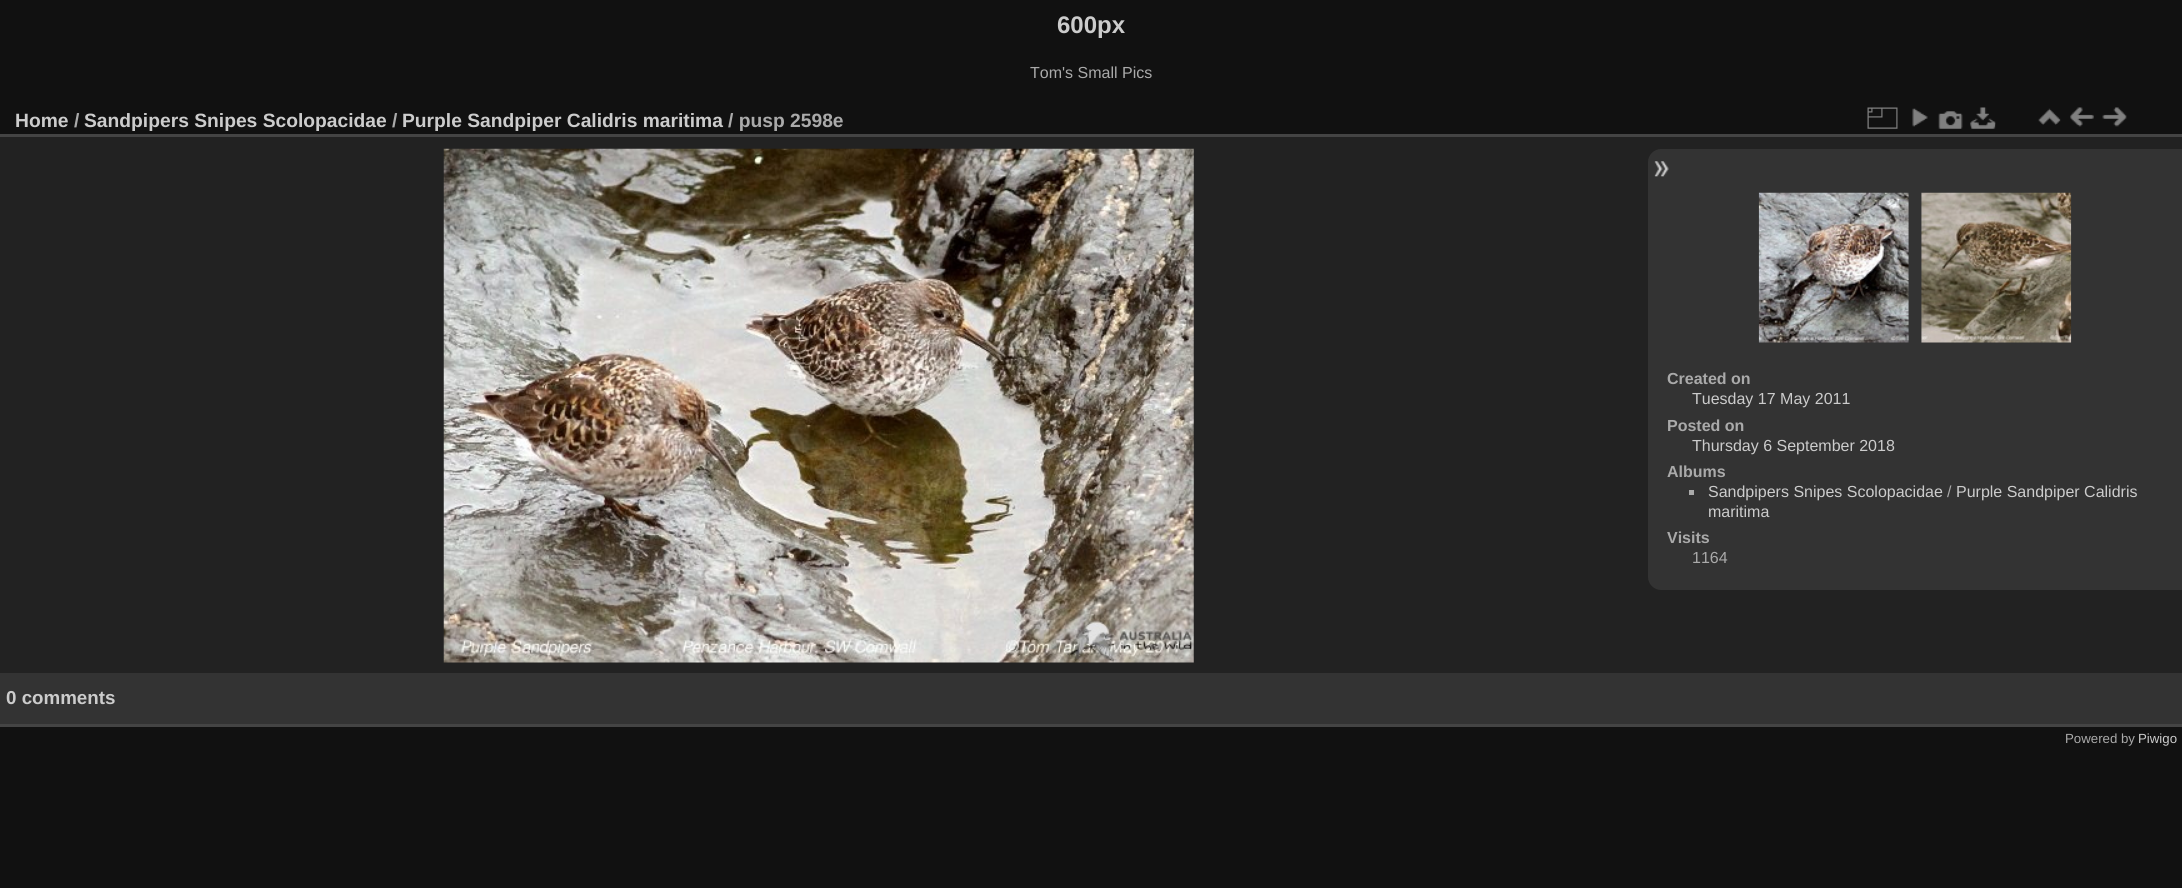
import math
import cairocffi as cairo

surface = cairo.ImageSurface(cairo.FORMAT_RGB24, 2182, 888)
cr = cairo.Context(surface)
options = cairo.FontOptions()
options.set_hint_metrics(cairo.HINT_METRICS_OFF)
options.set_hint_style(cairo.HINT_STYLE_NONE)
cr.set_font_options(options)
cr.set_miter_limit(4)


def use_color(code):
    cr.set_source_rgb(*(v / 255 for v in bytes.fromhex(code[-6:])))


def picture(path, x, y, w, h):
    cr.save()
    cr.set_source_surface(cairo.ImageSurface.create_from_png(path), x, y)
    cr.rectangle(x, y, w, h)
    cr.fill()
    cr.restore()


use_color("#111111")
cr.paint()
cr.select_font_face("Liberation Sans", cairo.FONT_SLANT_NORMAL, cairo.FONT_WEIGHT_BOLD)
cr.set_font_size(24)
use_color("#cccccc")
cr.move_to(1057, 33)
cr.show_text("600px")
cr.select_font_face("Liberation Sans")
cr.set_font_size(16)
use_color("#aaaaaa")
cr.move_to(1030, 78)
cr.show_text("Tom's Small Pics")
use_color("#222222")
cr.rectangle(0, 137, 2182, 536)
cr.fill()
use_color("#444444")
cr.rectangle(0, 724, 2182, 3)
cr.fill()
cr.rectangle(0, 134, 2182, 3)
cr.fill()
cr.select_font_face("Liberation Sans", cairo.FONT_SLANT_NORMAL, cairo.FONT_WEIGHT_BOLD)
cr.set_font_size(19.25)
use_color("#cccccc")
cr.move_to(15, 127)
cr.show_text("Home")
use_color("#aaaaaa")
cr.move_to(74, 127)
cr.show_text("/")
use_color("#cccccc")
cr.move_to(84, 127)
cr.show_text("Sandpipers Snipes Scolopacidae")
use_color("#aaaaaa")
cr.move_to(392, 127)
cr.show_text("/")
use_color("#cccccc")
cr.move_to(402, 127)
cr.show_text("Purple Sandpiper Calidris maritima")
use_color("#aaaaaa")
cr.move_to(728, 127)
cr.show_text("/ pusp 2598e")
picture("img1.png", 1867, 107, 31, 22)
picture("img2.png", 1912, 108, 16, 19)
picture("img3.png", 1938, 111, 25, 18)
picture("img4.png", 1970, 107, 26, 22)
picture("img5.png", 2038, 108, 23, 17)
picture("img6.png", 2070, 107, 24, 20)
picture("img7.png", 2102, 107, 25, 20)
picture("img8.png", 443, 148, 751, 515)
use_color("#333333")
cr.new_path()
cr.move_to(1661, 149)
cr.line_to(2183, 149)
cr.line_to(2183, 590)
cr.line_to(1661, 590)
cr.curve_to(1654, 590, 1648, 584, 1648, 577)
cr.line_to(1648, 162)
cr.curve_to(1648, 155, 1654, 149, 1661, 149)
cr.close_path()
cr.fill()
picture("img9.png", 1654, 161, 15, 16)
picture("img10.png", 1758, 192, 151, 151)
picture("img11.png", 1921, 192, 151, 151)
cr.set_font_size(16)
use_color("#aaaaaa")
cr.move_to(1667, 384)
cr.show_text("Created on")
cr.select_font_face("Liberation Sans")
use_color("#cccccc")
cr.move_to(1692, 404)
cr.show_text("Tuesday 17 May 2011")
cr.select_font_face("Liberation Sans", cairo.FONT_SLANT_NORMAL, cairo.FONT_WEIGHT_BOLD)
use_color("#aaaaaa")
cr.move_to(1667, 431)
cr.show_text("Posted on")
cr.select_font_face("Liberation Sans")
use_color("#cccccc")
cr.move_to(1692, 451)
cr.show_text("Thursday 6 September 2018")
cr.select_font_face("Liberation Sans", cairo.FONT_SLANT_NORMAL, cairo.FONT_WEIGHT_BOLD)
use_color("#aaaaaa")
cr.move_to(1667, 477)
cr.show_text("Albums")
cr.rectangle(1689, 490, 5, 5)
cr.fill()
cr.select_font_face("Liberation Sans")
use_color("#cccccc")
cr.move_to(1708, 497)
cr.show_text("Sandpipers Snipes Scolopacidae")
use_color("#aaaaaa")
cr.move_to(1947, 497)
cr.show_text("/")
use_color("#cccccc")
cr.move_to(1956, 497)
cr.show_text("Purple Sandpiper Calidris")
cr.move_to(1708, 517)
cr.show_text("maritima")
cr.select_font_face("Liberation Sans", cairo.FONT_SLANT_NORMAL, cairo.FONT_WEIGHT_BOLD)
use_color("#aaaaaa")
cr.move_to(1667, 543)
cr.show_text("Visits")
cr.select_font_face("Liberation Sans")
cr.move_to(1692, 563)
cr.show_text("1164")
use_color("#333333")
cr.rectangle(0, 673, 2182, 51)
cr.fill()
cr.select_font_face("Liberation Sans", cairo.FONT_SLANT_NORMAL, cairo.FONT_WEIGHT_BOLD)
cr.set_font_size(18.75)
use_color("#cccccc")
cr.move_to(6, 704)
cr.show_text("0 comments")
cr.select_font_face("Liberation Sans")
cr.set_font_size(13.25)
use_color("#aaaaaa")
cr.move_to(2065, 743)
cr.show_text("Powered by")
use_color("#cccccc")
cr.move_to(2138, 743)
cr.show_text("Piwigo")
surface.write_to_png("result.png")
